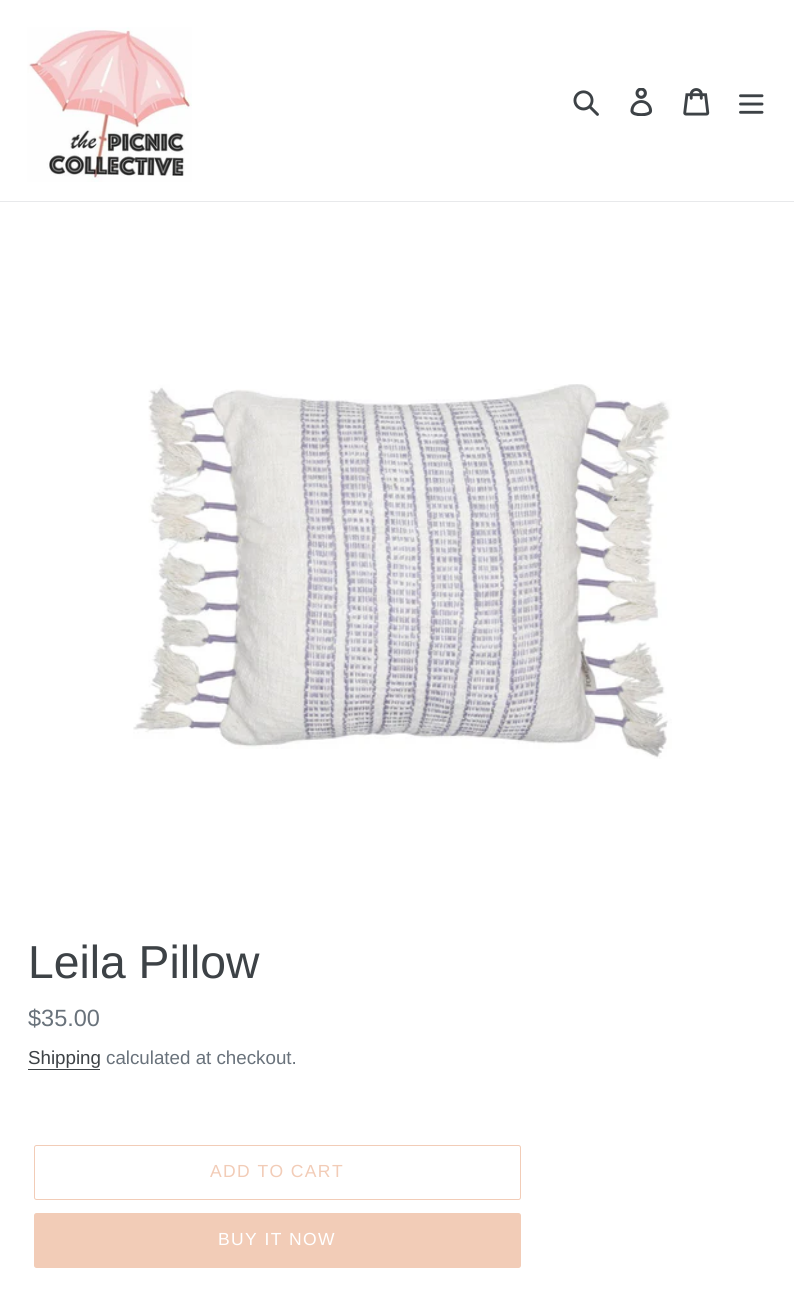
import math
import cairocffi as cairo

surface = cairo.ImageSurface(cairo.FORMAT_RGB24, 794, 1292)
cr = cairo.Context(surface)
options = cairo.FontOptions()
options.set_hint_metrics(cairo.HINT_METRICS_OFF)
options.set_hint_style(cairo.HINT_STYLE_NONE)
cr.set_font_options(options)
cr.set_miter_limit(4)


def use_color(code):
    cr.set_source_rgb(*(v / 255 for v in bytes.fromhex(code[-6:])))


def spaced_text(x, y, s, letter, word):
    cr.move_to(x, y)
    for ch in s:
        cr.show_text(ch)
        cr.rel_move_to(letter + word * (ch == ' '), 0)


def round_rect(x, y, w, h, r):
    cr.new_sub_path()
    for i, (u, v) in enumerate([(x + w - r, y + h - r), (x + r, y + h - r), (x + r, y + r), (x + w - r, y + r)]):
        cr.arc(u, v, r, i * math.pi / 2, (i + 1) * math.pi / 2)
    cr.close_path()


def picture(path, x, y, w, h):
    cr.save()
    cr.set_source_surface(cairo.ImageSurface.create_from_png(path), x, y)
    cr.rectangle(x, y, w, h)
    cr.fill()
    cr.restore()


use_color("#ffffff")
cr.paint()
use_color("#e8e9eb")
cr.rectangle(0, 201, 794, 1)
cr.fill()
picture("img1.png", 27, 27, 165, 155)
picture("img2.png", 573, 90, 26, 26)
picture("img3.png", 630, 88, 23, 28)
picture("img4.png", 683, 88, 27, 28)
picture("img5.png", 739, 94, 25, 20)
picture("img6.png", 133, 384, 539, 375)
cr.select_font_face("Arimo")
cr.set_font_size(46.25)
use_color("#3d4246")
cr.move_to(28, 978)
cr.show_text("Leila Pillow")
cr.set_font_size(23.5)
use_color("#69727b")
cr.move_to(28, 1026)
cr.show_text("$35.00")
cr.set_font_size(18.75)
use_color("#3d4246")
cr.move_to(28, 1064)
cr.show_text("Shipping")
cr.rectangle(28, 1069, 72, 1)
cr.fill()
use_color("#69727b")
cr.move_to(106, 1064)
cr.show_text("calculated at checkout.")
round_rect(34.5, 1145.5, 486, 54, 2)
use_color("#f2ccb7")
cr.set_line_width(1)
cr.stroke()
cr.set_font_size(17.5)
spaced_text(210, 1177, "ADD TO CART", 1.4, 0)
round_rect(34, 1213, 487, 55, 2.5)
cr.fill()
use_color("#ffffff")
spaced_text(218, 1245, "BUY IT NOW", 1.4, 0)
surface.write_to_png("result.png")
